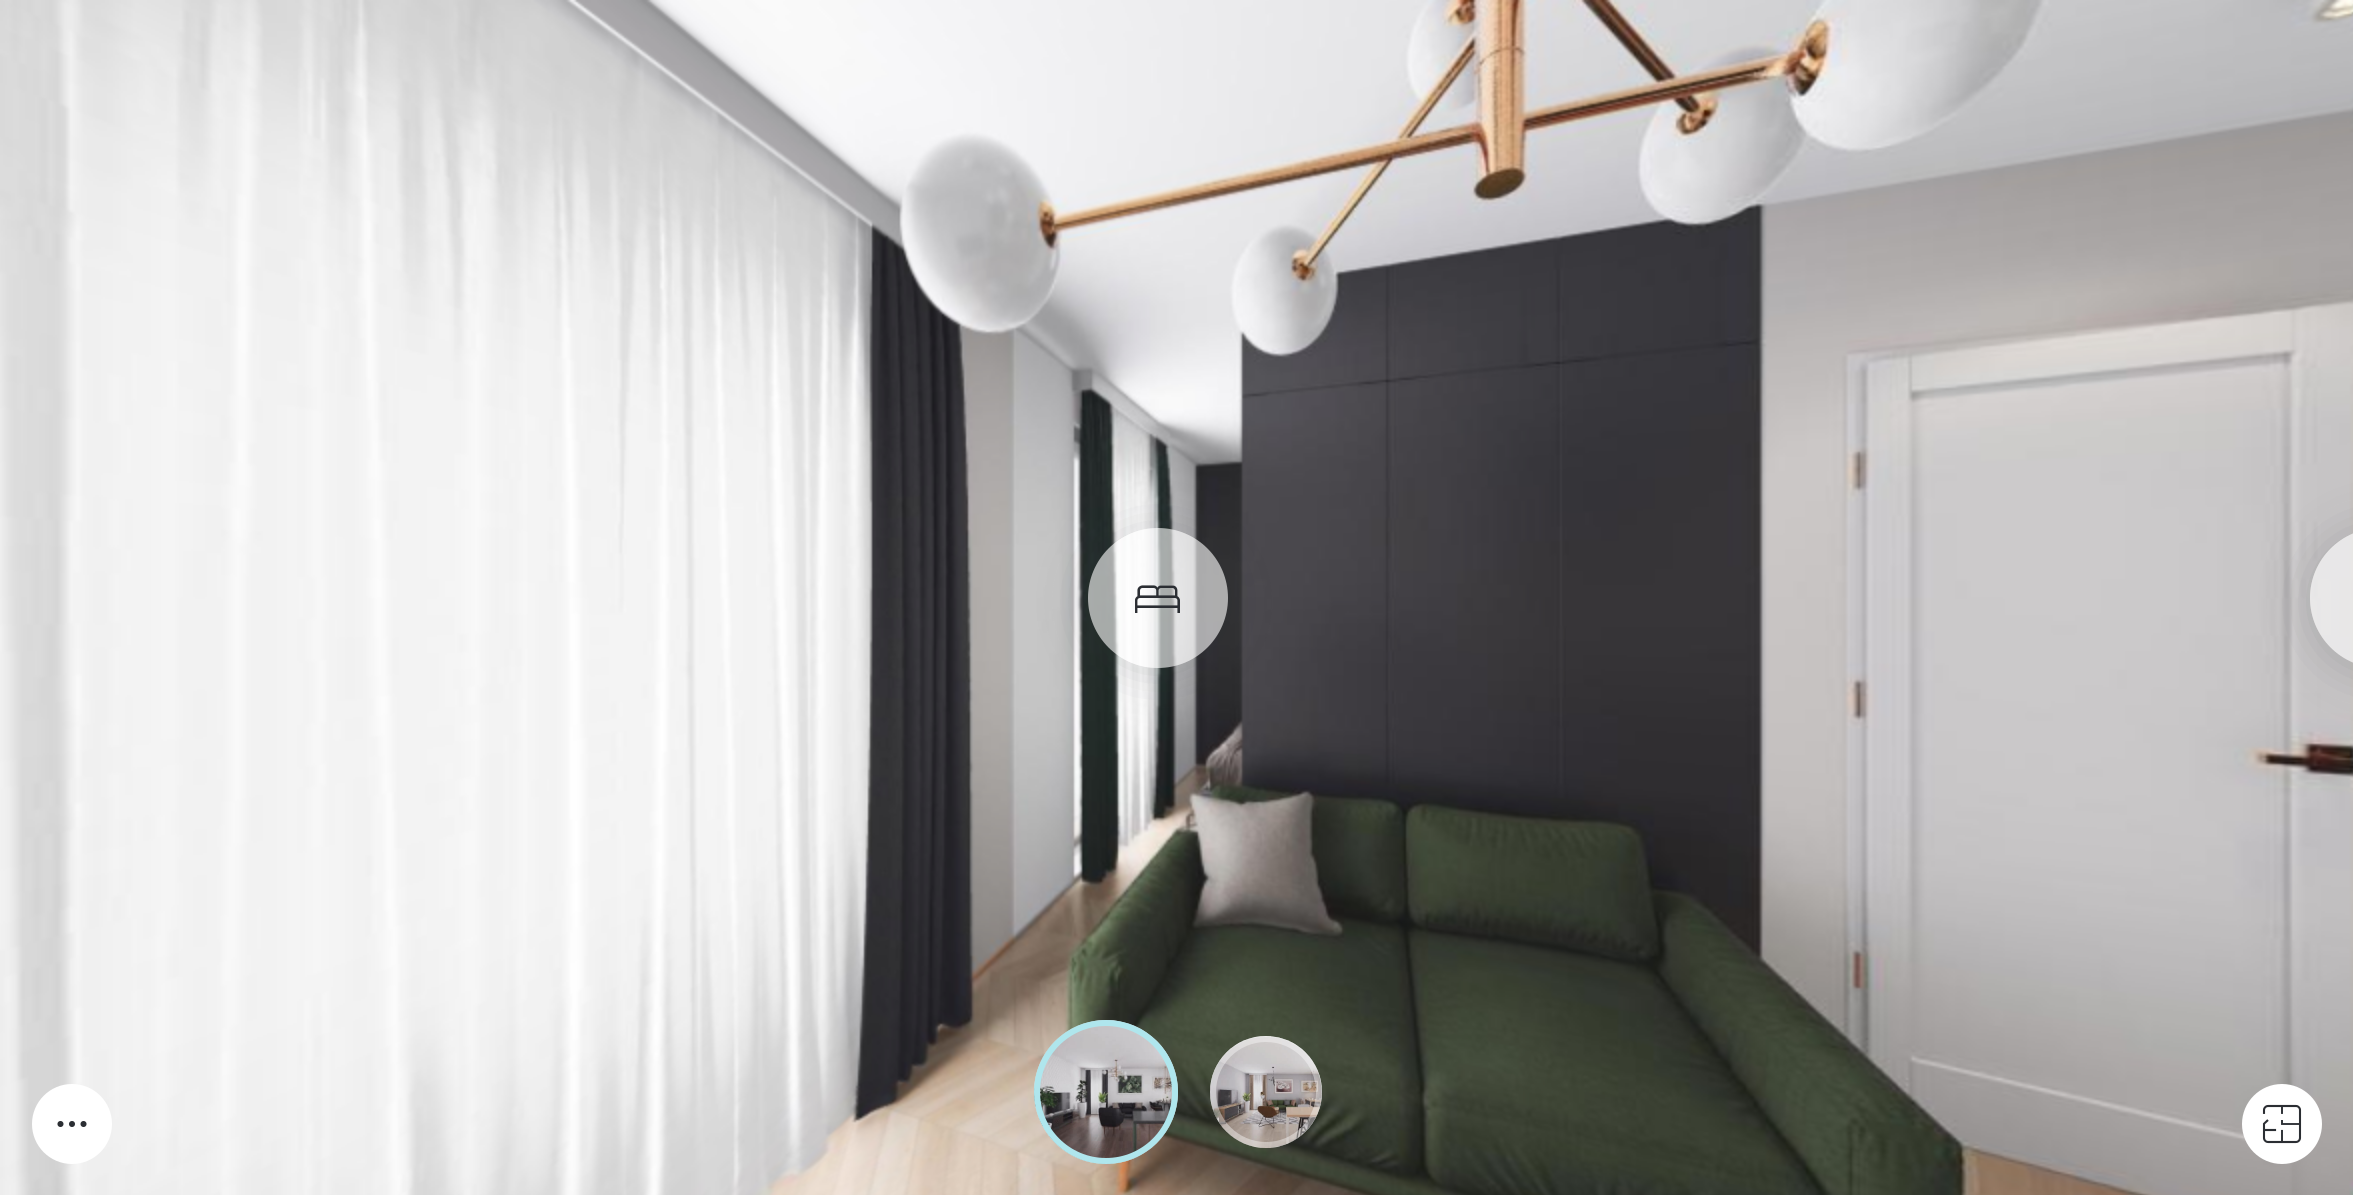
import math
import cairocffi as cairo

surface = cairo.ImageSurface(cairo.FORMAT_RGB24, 2353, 1195)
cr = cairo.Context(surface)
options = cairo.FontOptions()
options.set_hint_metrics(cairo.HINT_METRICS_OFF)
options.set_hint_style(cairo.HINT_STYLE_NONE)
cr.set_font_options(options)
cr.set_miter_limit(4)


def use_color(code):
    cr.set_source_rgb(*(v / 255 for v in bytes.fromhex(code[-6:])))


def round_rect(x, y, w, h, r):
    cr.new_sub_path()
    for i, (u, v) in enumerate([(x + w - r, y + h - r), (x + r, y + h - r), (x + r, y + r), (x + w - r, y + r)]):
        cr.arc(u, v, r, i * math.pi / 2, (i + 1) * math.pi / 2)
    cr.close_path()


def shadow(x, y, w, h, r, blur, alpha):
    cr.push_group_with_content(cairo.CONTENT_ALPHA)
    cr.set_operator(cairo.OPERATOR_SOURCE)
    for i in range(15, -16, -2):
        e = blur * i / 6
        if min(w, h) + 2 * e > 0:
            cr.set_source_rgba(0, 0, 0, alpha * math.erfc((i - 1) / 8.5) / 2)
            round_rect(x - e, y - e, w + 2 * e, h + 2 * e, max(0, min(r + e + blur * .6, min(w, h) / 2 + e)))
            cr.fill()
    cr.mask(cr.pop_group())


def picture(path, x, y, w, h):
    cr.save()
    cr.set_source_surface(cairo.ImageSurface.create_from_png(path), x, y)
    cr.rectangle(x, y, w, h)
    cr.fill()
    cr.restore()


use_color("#ffffff")
cr.paint()
picture("img1.png", 0, 0, 2353, 1195)
cr.save()
cr.set_fill_rule(cairo.FILL_RULE_EVEN_ODD)
cr.new_path()
cr.move_to(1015, 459)
cr.line_to(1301, 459)
cr.line_to(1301, 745)
cr.line_to(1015, 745)
cr.close_path()
cr.move_to(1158, 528)
cr.curve_to(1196.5, 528, 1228, 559.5, 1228, 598)
cr.curve_to(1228, 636.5, 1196.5, 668, 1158, 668)
cr.curve_to(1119.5, 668, 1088, 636.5, 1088, 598)
cr.curve_to(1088, 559.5, 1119.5, 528, 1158, 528)
cr.close_path()
cr.clip()
use_color("#2b2e33")
shadow(1088, 532, 140, 140, 70, 24, 0.2)
cr.restore()
cr.set_source_rgba(1, 1, 1, 0.6)
cr.arc(1158, 598, 70, 0, 2 * math.pi)
cr.fill()
picture("img2.png", 1135, 585, 45, 28)
cr.save()
cr.set_fill_rule(cairo.FILL_RULE_EVEN_ODD)
cr.new_path()
cr.move_to(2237, 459)
cr.line_to(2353, 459)
cr.line_to(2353, 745)
cr.line_to(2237, 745)
cr.close_path()
cr.move_to(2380, 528)
cr.curve_to(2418.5, 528, 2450, 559.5, 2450, 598)
cr.curve_to(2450, 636.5, 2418.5, 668, 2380, 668)
cr.curve_to(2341.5, 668, 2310, 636.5, 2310, 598)
cr.curve_to(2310, 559.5, 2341.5, 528, 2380, 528)
cr.close_path()
cr.clip()
use_color("#2b2e33")
shadow(2310, 532, 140, 140, 70, 24, 0.2)
cr.restore()
cr.new_path()
cr.move_to(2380, 528)
cr.line_to(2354, 528)
cr.line_to(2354, 668)
cr.line_to(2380, 668)
cr.curve_to(2341.5, 668, 2310, 636.5, 2310, 598)
cr.curve_to(2310, 559.5, 2341.5, 528, 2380, 528)
cr.close_path()
cr.fill()
use_color("#ffffff")
cr.arc(72, 1124, 40, 0, 2 * math.pi)
cr.fill()
picture("img3.png", 57, 1121, 30, 6)
picture("img4.png", 1034, 1020, 144, 144)
cr.arc(1106, 1092, 69, 0, 2 * math.pi)
use_color("#afe6ed")
cr.set_line_width(6)
cr.stroke()
picture("img5.png", 1210, 1036, 112, 112)
cr.arc(1266, 1092, 53, 0, 2 * math.pi)
cr.set_source_rgba(1, 1, 1, 0.4)
cr.stroke()
use_color("#ffffff")
cr.arc(2282, 1124, 40, 0, 2 * math.pi)
cr.fill()
picture("img6.png", 2262, 1104, 40, 40)
surface.write_to_png("result.png")
